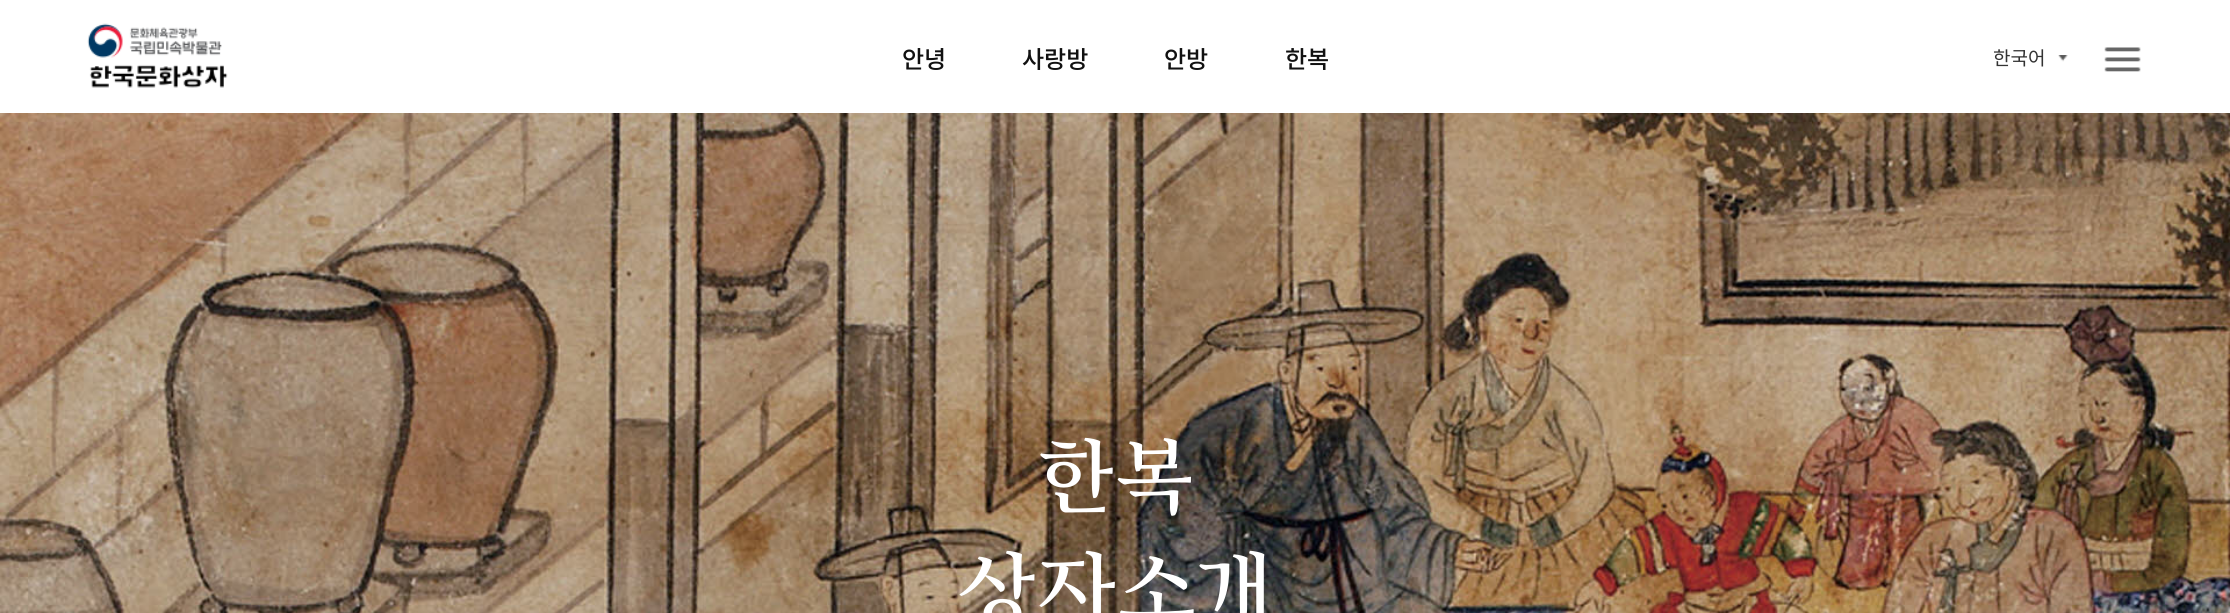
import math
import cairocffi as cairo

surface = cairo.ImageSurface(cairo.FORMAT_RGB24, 2230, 613)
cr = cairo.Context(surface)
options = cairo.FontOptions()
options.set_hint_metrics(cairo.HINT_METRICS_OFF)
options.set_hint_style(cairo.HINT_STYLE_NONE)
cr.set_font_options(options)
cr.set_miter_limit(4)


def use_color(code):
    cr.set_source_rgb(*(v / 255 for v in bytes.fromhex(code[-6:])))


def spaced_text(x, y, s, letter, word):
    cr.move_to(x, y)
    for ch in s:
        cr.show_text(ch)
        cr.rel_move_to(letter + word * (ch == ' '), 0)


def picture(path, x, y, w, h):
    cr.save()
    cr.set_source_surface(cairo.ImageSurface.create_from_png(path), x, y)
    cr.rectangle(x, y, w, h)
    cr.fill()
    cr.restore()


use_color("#ffffff")
cr.paint()
picture("img1.png", 87, 23, 141, 65)
cr.select_font_face("Noto Sans KR Medium")
cr.set_font_size(24)
use_color("#111111")
cr.move_to(902, 68)
cr.show_text("안녕")
cr.move_to(1022, 68)
cr.show_text("사랑방")
cr.move_to(1164, 68)
cr.show_text("안방")
cr.move_to(1285, 68)
cr.show_text("한복")
picture("img2.png", 2104, 47, 37, 25)
cr.select_font_face("Noto Sans KR")
cr.set_font_size(19)
use_color("#333333")
cr.move_to(1993, 65)
cr.show_text("한국어")
picture("img3.png", 2058, 55, 10, 7)
picture("img4.png", 0, 113, 2230, 500)
cr.select_font_face("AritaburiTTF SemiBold")
cr.set_font_size(82.5)
use_color("#ffffff")
spaced_text(1036, 504, "한복", -0.5, 0)
spaced_text(957, 617, "상자소개", -0.5, 0)
surface.write_to_png("result.png")
